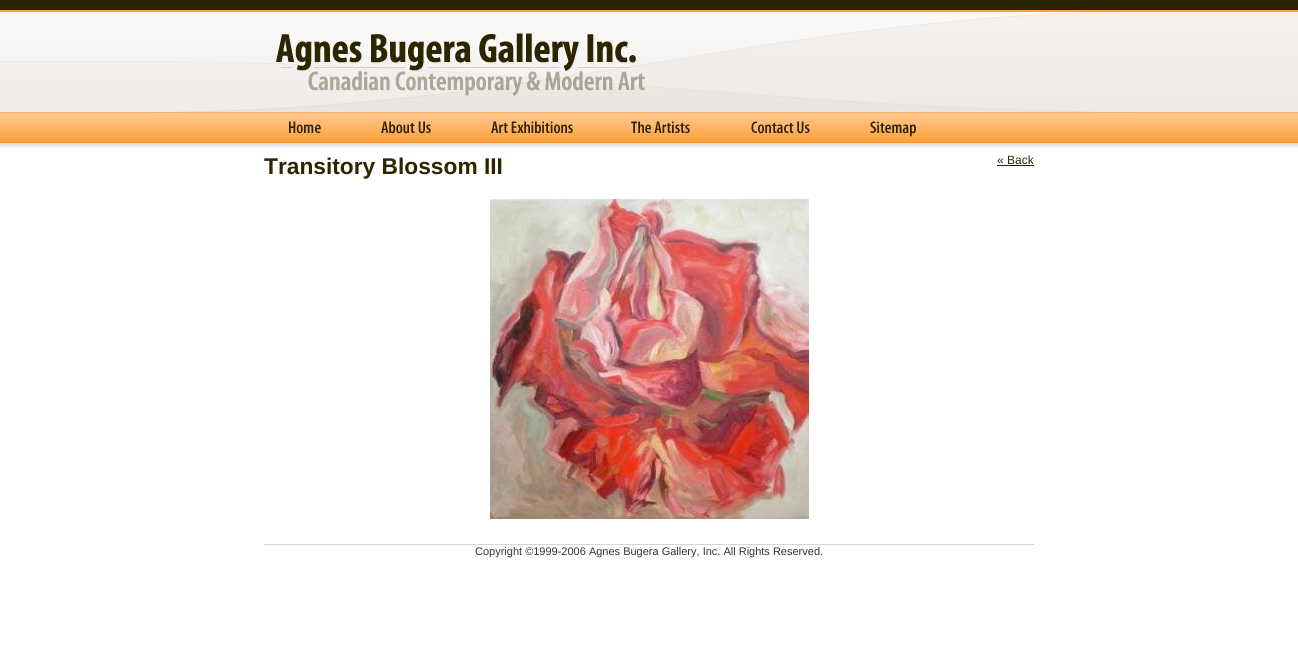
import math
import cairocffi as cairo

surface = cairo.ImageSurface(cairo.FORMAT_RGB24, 1298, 661)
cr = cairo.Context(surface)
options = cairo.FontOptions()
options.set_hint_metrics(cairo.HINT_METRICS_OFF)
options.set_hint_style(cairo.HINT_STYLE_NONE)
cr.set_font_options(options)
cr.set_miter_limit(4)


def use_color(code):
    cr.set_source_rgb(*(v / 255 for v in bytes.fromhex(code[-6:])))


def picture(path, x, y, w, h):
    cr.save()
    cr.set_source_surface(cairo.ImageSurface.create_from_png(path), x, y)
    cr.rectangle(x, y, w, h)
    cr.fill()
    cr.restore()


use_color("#ffffff")
cr.paint()
picture("img1.png", 0, 0, 1298, 149)
picture("img2.png", 276, 33, 369, 72)
picture("img3.png", 289, 121, 32, 13)
picture("img4.png", 381, 121, 50, 13)
picture("img5.png", 491, 121, 82, 13)
picture("img6.png", 631, 121, 59, 12)
picture("img7.png", 751, 121, 59, 13)
picture("img8.png", 870, 121, 46, 16)
cr.select_font_face("Liberation Sans", cairo.FONT_SLANT_NORMAL, cairo.FONT_WEIGHT_BOLD)
cr.set_font_size(22.75)
use_color("#2c2500")
cr.move_to(264, 174)
cr.show_text("Transitory Blossom III")
cr.select_font_face("Liberation Sans")
cr.set_font_size(12)
cr.move_to(997, 164)
cr.show_text("« Back")
cr.rectangle(997, 165, 37, 1)
cr.fill()
picture("img9.png", 490, 199, 319, 320)
use_color("#ddd3ca")
cr.rectangle(264, 544, 770, 1)
cr.fill()
cr.set_font_size(11)
use_color("#333333")
cr.move_to(475, 555)
cr.show_text("Copyright ©1999-2006 Agnes Bugera Gallery, Inc. All Rights Reserved.")
surface.write_to_png("result.png")
